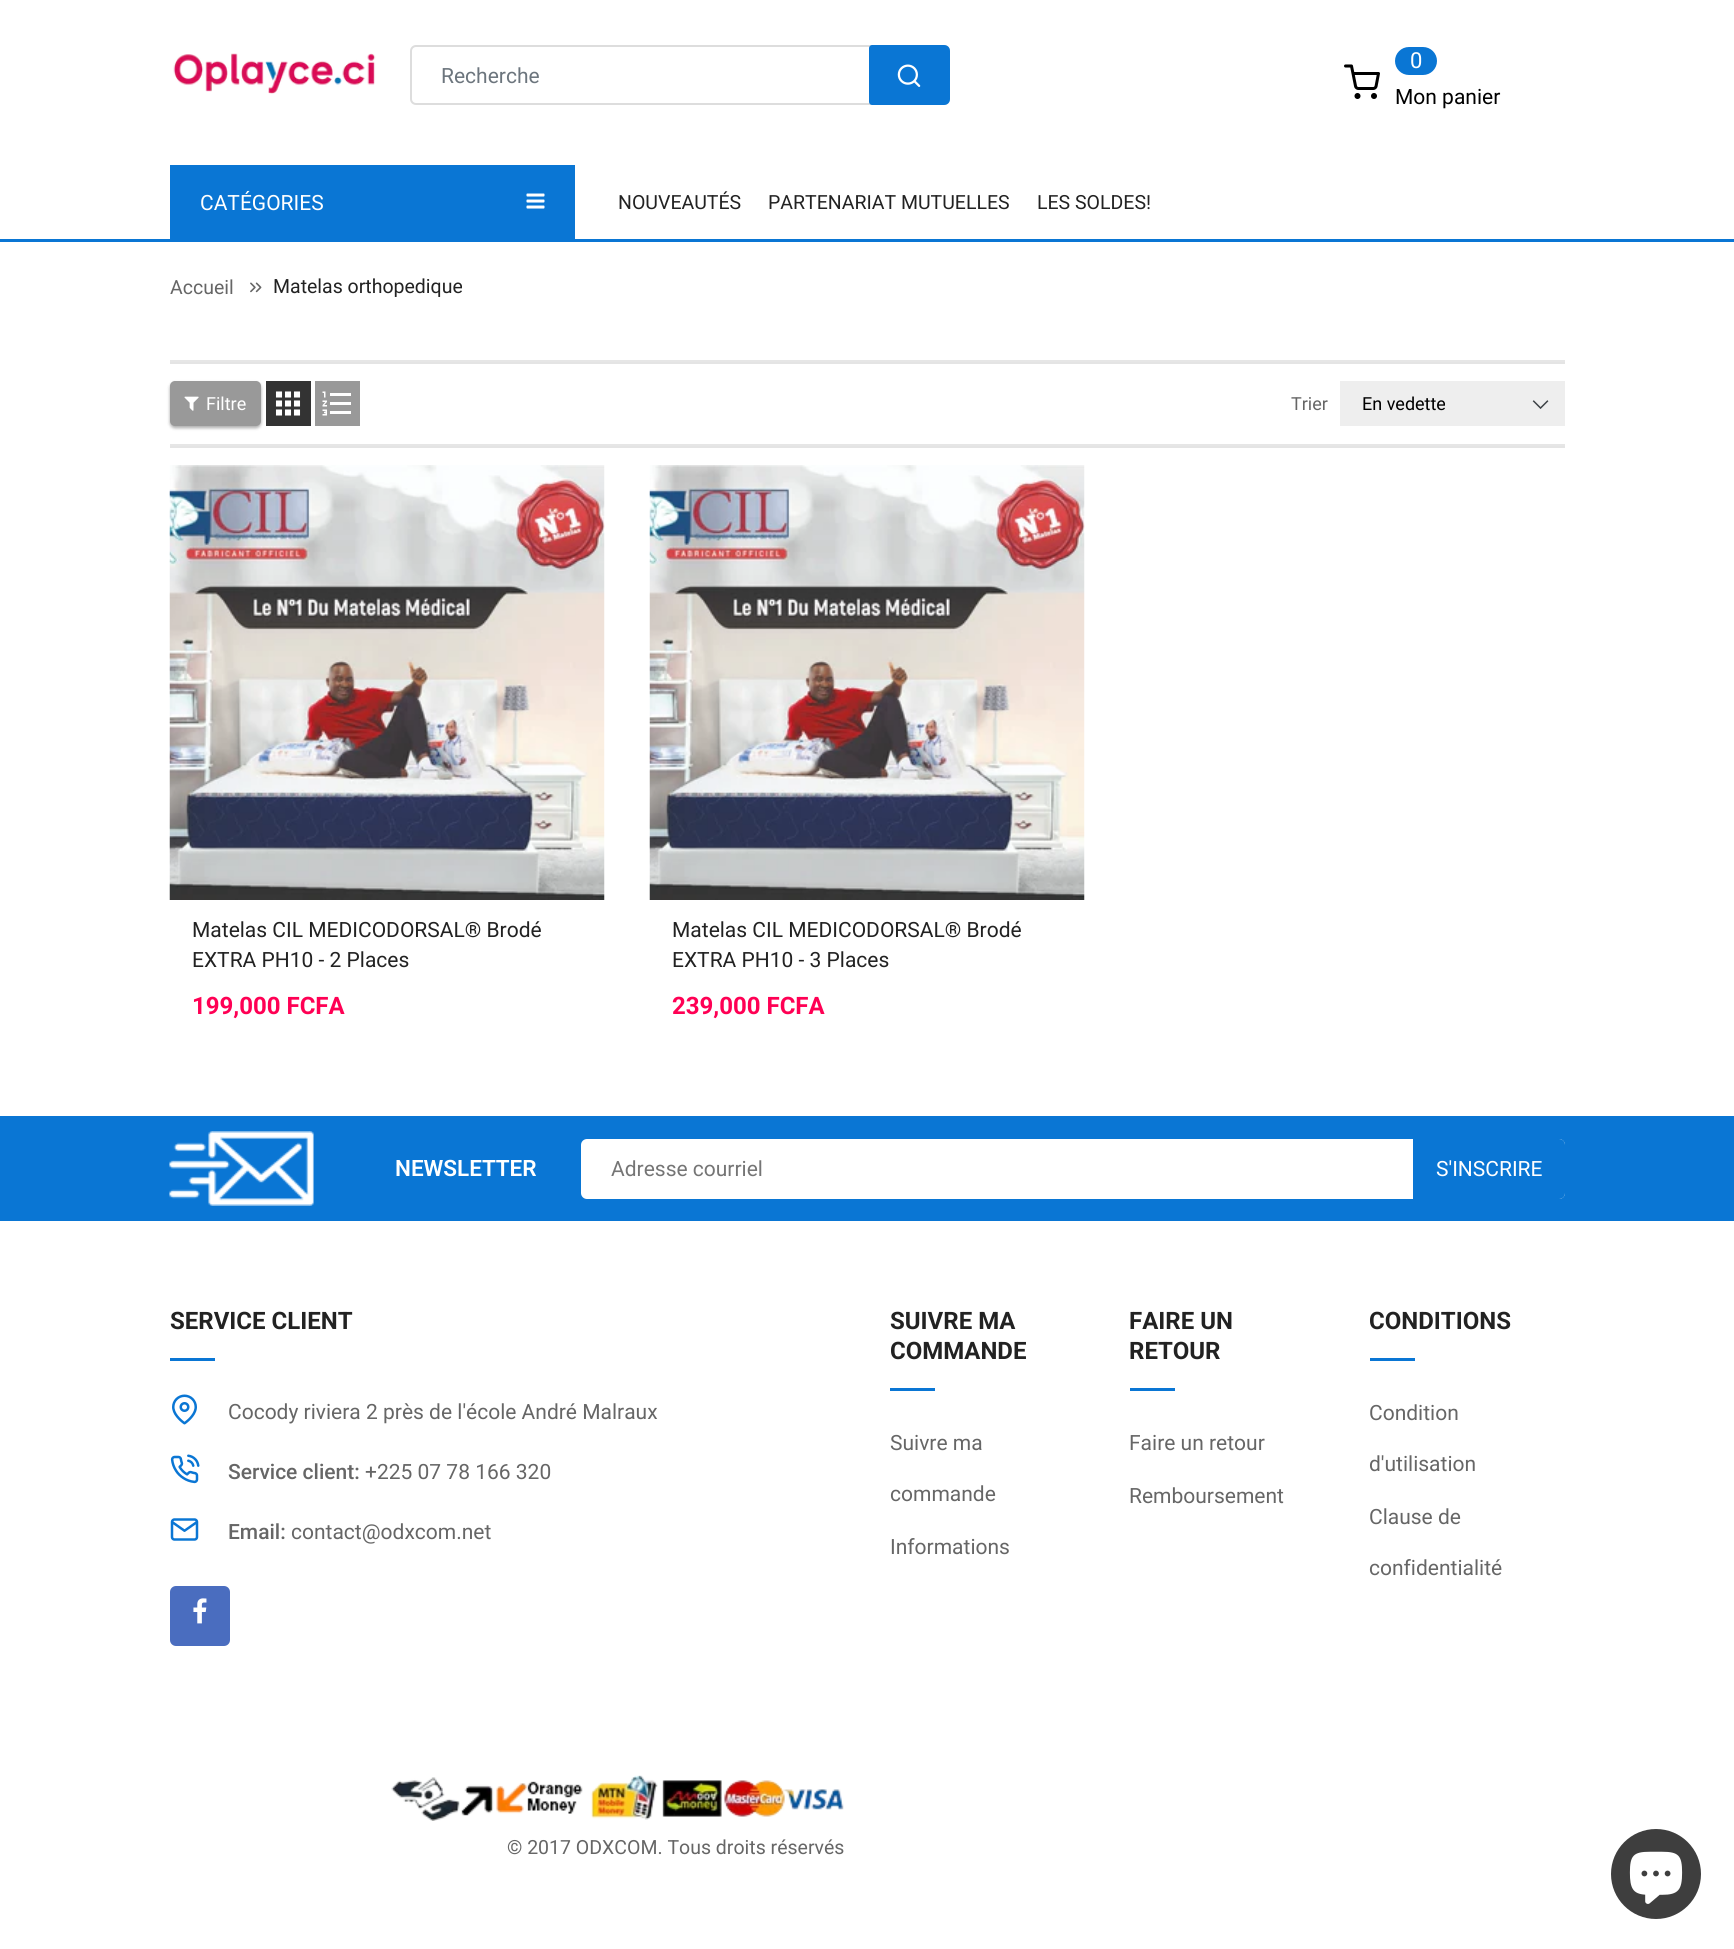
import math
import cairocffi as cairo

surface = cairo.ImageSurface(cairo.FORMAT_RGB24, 1734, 1949)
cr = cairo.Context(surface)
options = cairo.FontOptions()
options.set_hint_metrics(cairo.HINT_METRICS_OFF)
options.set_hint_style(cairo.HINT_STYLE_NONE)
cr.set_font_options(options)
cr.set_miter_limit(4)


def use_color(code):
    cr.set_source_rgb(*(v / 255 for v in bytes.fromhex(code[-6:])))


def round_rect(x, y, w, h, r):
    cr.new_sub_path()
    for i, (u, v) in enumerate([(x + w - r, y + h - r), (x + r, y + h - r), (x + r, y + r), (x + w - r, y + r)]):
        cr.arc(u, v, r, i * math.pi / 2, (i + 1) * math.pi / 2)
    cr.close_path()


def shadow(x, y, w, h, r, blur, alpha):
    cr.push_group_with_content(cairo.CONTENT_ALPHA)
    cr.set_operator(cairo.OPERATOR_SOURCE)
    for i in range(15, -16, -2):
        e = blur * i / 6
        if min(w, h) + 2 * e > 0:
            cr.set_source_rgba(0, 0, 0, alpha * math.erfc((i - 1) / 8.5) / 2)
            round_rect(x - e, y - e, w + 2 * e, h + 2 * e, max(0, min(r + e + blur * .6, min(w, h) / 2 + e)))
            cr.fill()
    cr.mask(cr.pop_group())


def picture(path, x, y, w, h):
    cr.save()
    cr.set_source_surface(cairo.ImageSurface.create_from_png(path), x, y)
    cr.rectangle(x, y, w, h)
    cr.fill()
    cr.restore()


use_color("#ffffff")
cr.paint()
picture("img1.png", 173, 53, 203, 41)
round_rect(411, 46, 538, 58, 5)
use_color("#dddddd")
cr.stroke()
cr.select_font_face("Roboto")
cr.set_font_size(21)
use_color("#6c757d")
cr.move_to(441, 83)
cr.show_text("Recherche")
use_color("#0a76d4")
cr.new_path()
cr.move_to(872, 45)
cr.line_to(944, 45)
cr.curve_to(947.5, 45, 950, 47.5, 950, 51)
cr.line_to(950, 99)
cr.curve_to(950, 102.5, 947.5, 105, 944, 105)
cr.line_to(872, 105)
cr.curve_to(870.5, 105, 869, 103.5, 869, 102)
cr.line_to(869, 48)
cr.curve_to(869, 46.5, 870.5, 45, 872, 45)
cr.close_path()
cr.fill()
picture("img2.png", 897, 64, 24, 23)
picture("img3.png", 1344, 64, 36, 35)
round_rect(1395, 47, 42, 28, 14)
cr.fill()
cr.set_font_size(22)
use_color("#ffffff")
cr.move_to(1410, 68)
cr.show_text("0")
cr.set_font_size(21)
use_color("#000000")
cr.move_to(1395, 104)
cr.show_text("Mon panier")
use_color("#0a76d4")
cr.rectangle(0, 239, 1734, 3)
cr.fill()
cr.rectangle(170, 165, 405, 74)
cr.fill()
use_color("#ffffff")
cr.move_to(200, 210)
cr.show_text("CATÉGORIES")
picture("img4.png", 526, 193, 19, 16)
cr.set_font_size(19.5)
use_color("#222222")
cr.move_to(618, 209)
cr.show_text("NOUVEAUTÉS")
cr.move_to(768, 209)
cr.show_text("PARTENARIAT MUTUELLES")
cr.move_to(1037, 209)
cr.show_text("LES SOLDES!")
use_color("#666666")
cr.move_to(170, 294)
cr.show_text("Accueil")
picture("img5.png", 250, 282, 12, 11)
use_color("#222222")
cr.move_to(273, 293)
cr.show_text("Matelas orthopedique")
use_color("#e6e6e6")
cr.rectangle(170, 360, 1395, 2)
cr.fill()
use_color("#e4e4e4")
cr.rectangle(170, 362, 1395, 2)
cr.fill()
use_color("#000000")
shadow(170, 383, 91, 45, 5, 1.5, 0.24)
shadow(170, 383, 91, 45, 5, 2, 0.12)
use_color("#999999")
round_rect(170, 381, 91, 45, 5)
cr.fill()
picture("img6.png", 184, 396, 15, 15)
cr.set_font_size(18)
use_color("#ffffff")
cr.move_to(206, 410)
cr.show_text("Filtre")
use_color("#333333")
cr.rectangle(266, 381, 45, 45)
cr.fill()
picture("img7.png", 275, 391, 26, 25)
use_color("#999999")
cr.rectangle(315, 381, 45, 45)
cr.fill()
picture("img8.png", 322, 391, 29, 25)
use_color("#666666")
cr.move_to(1291, 410)
cr.show_text("Trier")
use_color("#eeeeee")
cr.rectangle(1340, 381, 225, 45)
cr.fill()
picture("img9.png", 1532, 400, 17, 9)
use_color("#000000")
cr.move_to(1362, 410)
cr.show_text("En vedette")
use_color("#e6e6e6")
cr.rectangle(170, 444, 1395, 2)
cr.fill()
use_color("#e4e4e4")
cr.rectangle(170, 446, 1395, 2)
cr.fill()
picture("img10.png", 169, 465, 436, 435)
cr.set_font_size(21)
use_color("#222222")
cr.move_to(192, 937)
cr.show_text("Matelas CIL MEDICODORSAL® Brodé")
cr.move_to(192, 967)
cr.show_text("EXTRA PH10 - 2 Places")
cr.select_font_face("Roboto", cairo.FONT_SLANT_NORMAL, cairo.FONT_WEIGHT_BOLD)
cr.set_font_size(24)
use_color("#ff0054")
cr.move_to(192, 1014)
cr.show_text("199,000 FCFA")
picture("img11.png", 649, 465, 436, 435)
cr.select_font_face("Roboto")
cr.set_font_size(21)
use_color("#222222")
cr.move_to(672, 937)
cr.show_text("Matelas CIL MEDICODORSAL® Brodé")
cr.move_to(672, 967)
cr.show_text("EXTRA PH10 - 3 Places")
cr.select_font_face("Roboto", cairo.FONT_SLANT_NORMAL, cairo.FONT_WEIGHT_BOLD)
cr.set_font_size(24)
use_color("#ff0054")
cr.move_to(672, 1014)
cr.show_text("239,000 FCFA")
use_color("#0a76d4")
cr.rectangle(0, 1116, 1734, 105)
cr.fill()
picture("img12.png", 169, 1131, 145, 75)
cr.select_font_face("Roboto SemiBold")
cr.set_font_size(22.5)
use_color("#ffffff")
cr.move_to(395, 1176)
cr.show_text("NEWSLETTER")
round_rect(581, 1139, 984, 60, 6)
cr.fill()
cr.select_font_face("Roboto")
cr.set_font_size(21)
use_color("#757575")
cr.move_to(611, 1176)
cr.show_text("Adresse courriel")
use_color("#0a76d4")
cr.new_path()
cr.move_to(1413, 1139)
cr.line_to(1559, 1139)
cr.curve_to(1562.5, 1139, 1565, 1141.5, 1565, 1145)
cr.line_to(1565, 1193)
cr.curve_to(1565, 1196.5, 1562.5, 1199, 1559, 1199)
cr.line_to(1413, 1199)
cr.close_path()
cr.fill()
use_color("#ffffff")
cr.move_to(1436, 1176)
cr.show_text("S'INSCRIRE")
cr.select_font_face("Roboto", cairo.FONT_SLANT_NORMAL, cairo.FONT_WEIGHT_BOLD)
cr.set_font_size(24)
use_color("#222222")
cr.move_to(170, 1329)
cr.show_text("SERVICE CLIENT")
use_color("#0a76d4")
cr.rectangle(170, 1358, 45, 3)
cr.fill()
picture("img13.png", 172, 1394, 25, 31)
cr.select_font_face("Roboto")
cr.set_font_size(21)
use_color("#666666")
cr.move_to(228, 1419)
cr.show_text("Cocody riviera 2 près de l'école André Malraux")
picture("img14.png", 170, 1454, 30, 30)
cr.select_font_face("Roboto Medium")
cr.move_to(228, 1479)
cr.show_text("Service client:")
cr.select_font_face("Roboto")
cr.move_to(365, 1479)
cr.show_text("+225 07 78 166 320")
picture("img15.png", 170, 1518, 29, 23)
cr.select_font_face("Roboto Medium")
cr.move_to(228, 1539)
cr.show_text("Email:")
cr.select_font_face("Roboto")
cr.move_to(291, 1539)
cr.show_text("contact@odxcom.net")
use_color("#4a6dbf")
round_rect(170, 1586, 60, 60, 6)
cr.fill()
picture("img16.png", 193, 1598, 14, 26)
cr.select_font_face("Roboto", cairo.FONT_SLANT_NORMAL, cairo.FONT_WEIGHT_BOLD)
cr.set_font_size(24)
use_color("#222222")
cr.move_to(890, 1329)
cr.show_text("SUIVRE MA")
cr.move_to(890, 1359)
cr.show_text("COMMANDE")
use_color("#0a76d4")
cr.rectangle(890, 1388, 45, 3)
cr.fill()
cr.select_font_face("Roboto")
cr.set_font_size(21)
use_color("#666666")
cr.move_to(890, 1450)
cr.show_text("Suivre ma")
cr.move_to(890, 1501)
cr.show_text("commande")
cr.move_to(890, 1554)
cr.show_text("Informations")
cr.select_font_face("Roboto", cairo.FONT_SLANT_NORMAL, cairo.FONT_WEIGHT_BOLD)
cr.set_font_size(24)
use_color("#222222")
cr.move_to(1129, 1329)
cr.show_text("FAIRE UN")
cr.move_to(1129, 1359)
cr.show_text("RETOUR")
use_color("#0a76d4")
cr.rectangle(1130, 1388, 45, 3)
cr.fill()
cr.select_font_face("Roboto")
cr.set_font_size(21)
use_color("#666666")
cr.move_to(1129, 1450)
cr.show_text("Faire un retour")
cr.move_to(1129, 1503)
cr.show_text("Remboursement")
cr.select_font_face("Roboto", cairo.FONT_SLANT_NORMAL, cairo.FONT_WEIGHT_BOLD)
cr.set_font_size(24)
use_color("#222222")
cr.move_to(1369, 1329)
cr.show_text("CONDITIONS")
use_color("#0a76d4")
cr.rectangle(1370, 1358, 45, 3)
cr.fill()
cr.select_font_face("Roboto")
cr.set_font_size(21)
use_color("#666666")
cr.move_to(1369, 1420)
cr.show_text("Condition")
cr.move_to(1369, 1471)
cr.show_text("d'utilisation")
cr.move_to(1369, 1524)
cr.show_text("Clause de")
cr.move_to(1369, 1575)
cr.show_text("confidentialité")
picture("img17.png", 391, 1775, 453, 46)
cr.set_font_size(19.5)
cr.move_to(507, 1854)
cr.show_text("© 2017 ODXCOM. Tous droits réservés")
use_color("#3e3e3e")
cr.new_path()
cr.arc(1656, 1874, 45, 0, 2 * math.pi)
cr.fill()
picture("img18.png", 1629, 1851, 54, 53)
surface.write_to_png("result.png")
